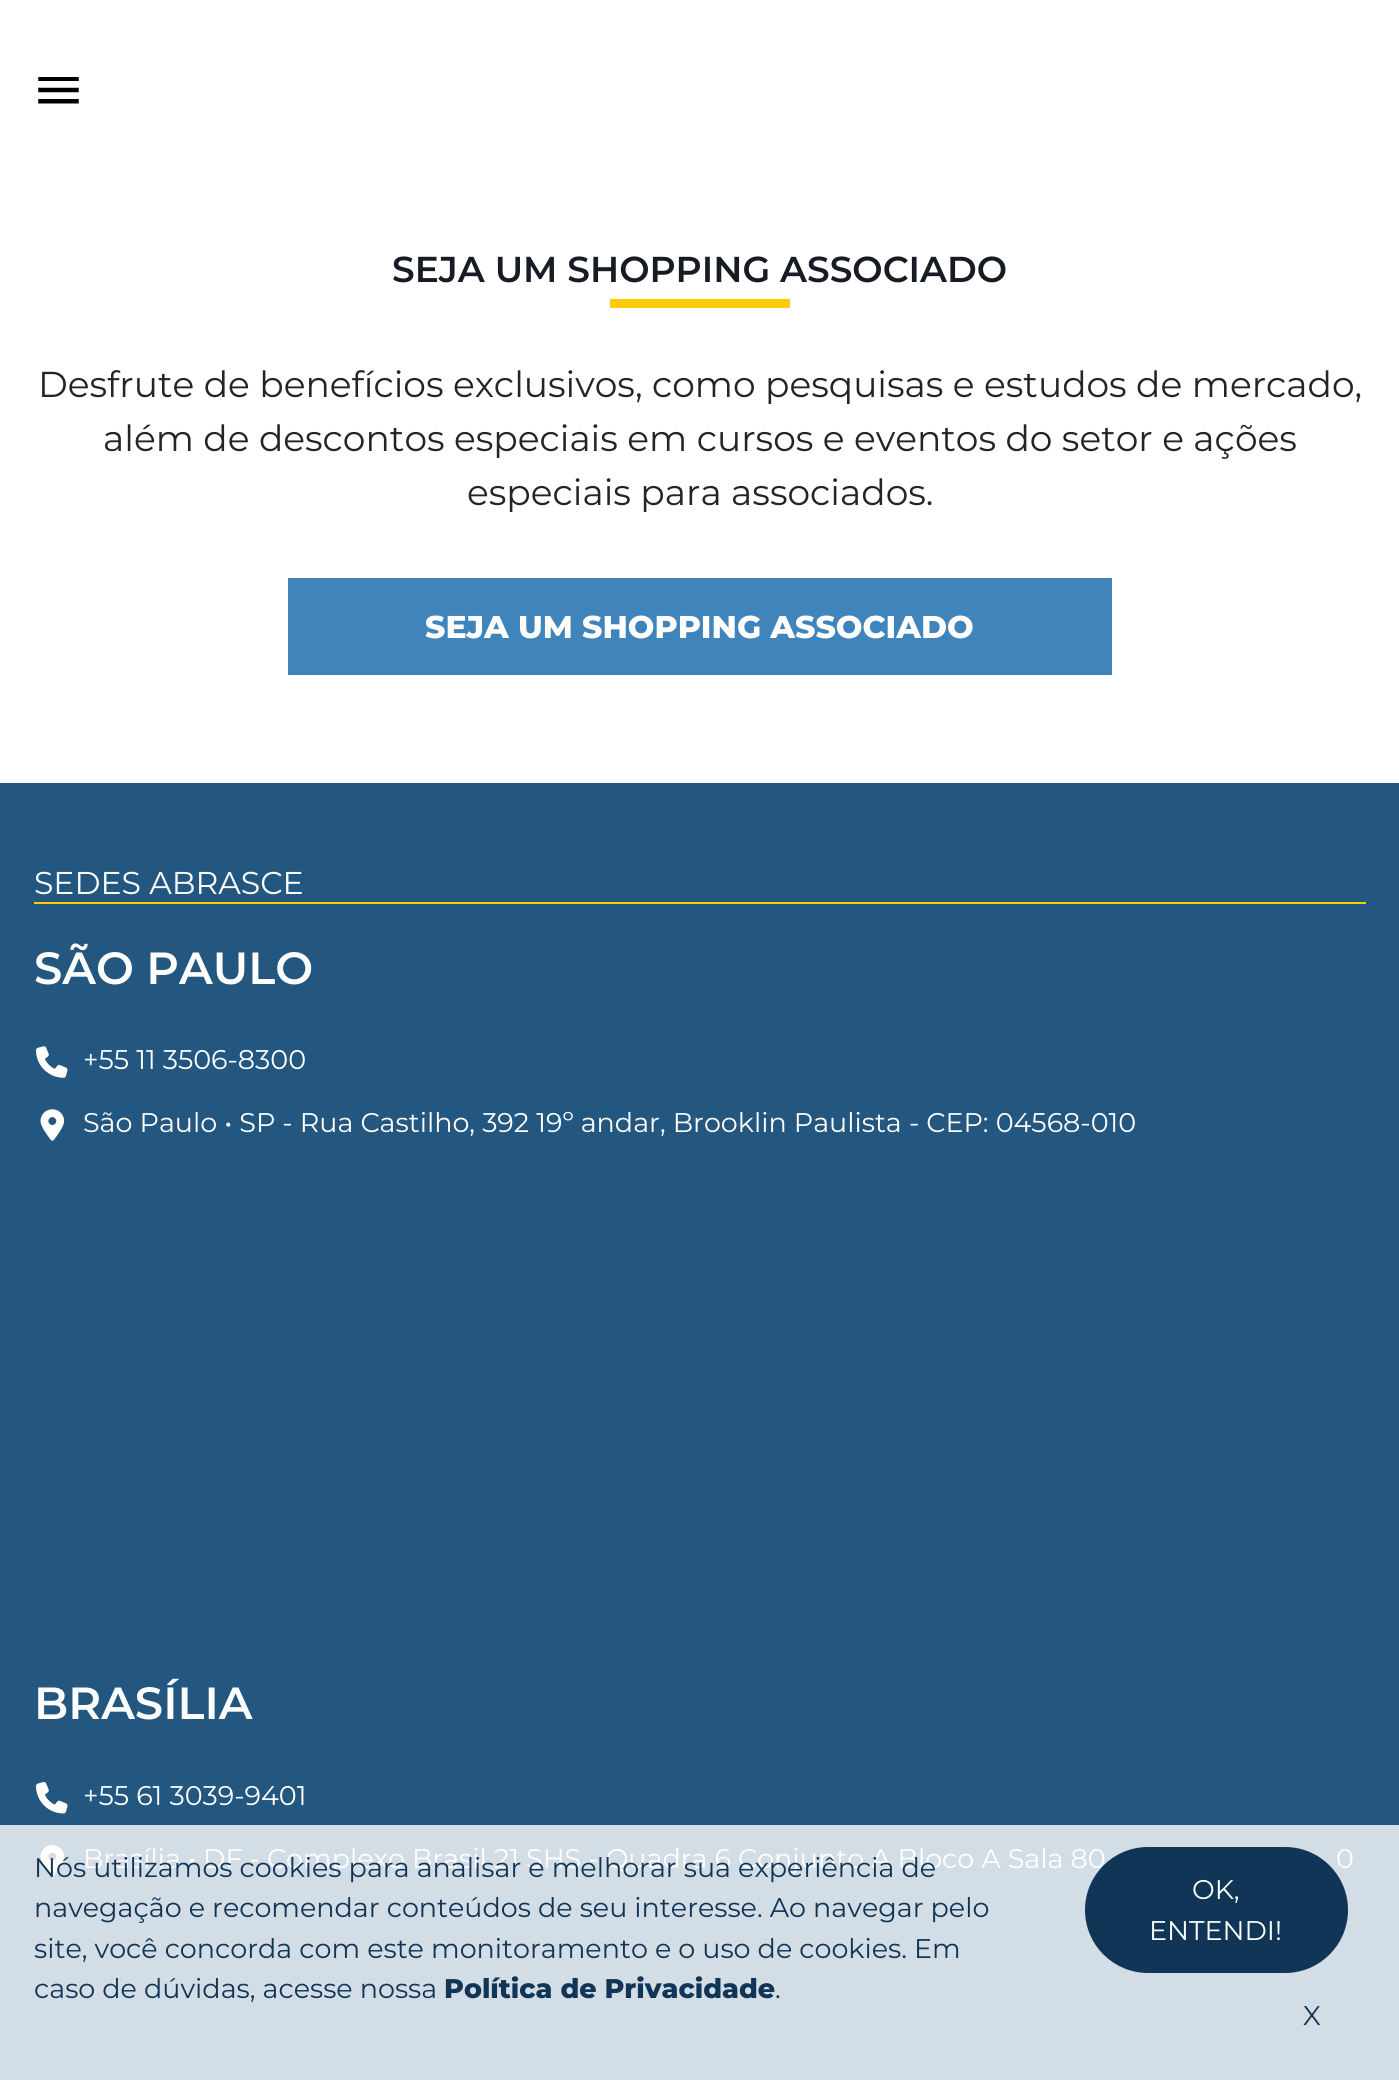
import math
import cairocffi as cairo

surface = cairo.ImageSurface(cairo.FORMAT_RGB24, 1399, 2080)
cr = cairo.Context(surface)
options = cairo.FontOptions()
options.set_hint_metrics(cairo.HINT_METRICS_OFF)
options.set_hint_style(cairo.HINT_STYLE_NONE)
cr.set_font_options(options)
cr.set_miter_limit(4)


def use_color(code):
    cr.set_source_rgb(*(v / 255 for v in bytes.fromhex(code[-6:])))


def round_rect(x, y, w, h, r):
    cr.new_sub_path()
    for i, (u, v) in enumerate([(x + w - r, y + h - r), (x + r, y + h - r), (x + r, y + r), (x + w - r, y + r)]):
        cr.arc(u, v, r, i * math.pi / 2, (i + 1) * math.pi / 2)
    cr.close_path()


def picture(path, x, y, w, h):
    cr.save()
    cr.set_source_surface(cairo.ImageSurface.create_from_png(path), x, y)
    cr.rectangle(x, y, w, h)
    cr.fill()
    cr.restore()


use_color("#ffffff")
cr.paint()
picture("img1.png", 38, 77, 41, 27)
cr.select_font_face("Montserrat SemiBold")
cr.set_font_size(36)
use_color("#171c24")
cr.move_to(392, 282)
cr.show_text("SEJA UM SHOPPING ASSOCIADO")
use_color("#ffcb05")
cr.rectangle(610, 299, 180, 9)
cr.fill()
cr.select_font_face("Montserrat")
use_color("#212529")
cr.move_to(38, 397)
cr.show_text("Desfrute de benefícios exclusivos, como pesquisas e estudos de mercado,")
cr.move_to(103, 451)
cr.show_text("além de descontos especiais em cursos e eventos do setor e ações")
cr.move_to(467, 505)
cr.show_text("especiais para associados.")
use_color("#3f84bb")
cr.rectangle(288, 578, 824, 97)
cr.fill()
cr.select_font_face("Montserrat ExtraBold")
cr.set_font_size(31.5)
use_color("#ffffff")
cr.move_to(425, 638)
cr.show_text("SEJA UM SHOPPING ASSOCIADO")
use_color("#245780")
cr.rectangle(0, 783, 1399, 1042)
cr.fill()
use_color("#d3dde6")
cr.rectangle(0, 1825, 1399, 255)
cr.fill()
cr.select_font_face("Montserrat")
use_color("#ffffff")
cr.move_to(34, 894)
cr.show_text("SEDES ABRASCE")
use_color("#ffcb05")
cr.rectangle(34, 902, 1332, 2)
cr.fill()
cr.select_font_face("Montserrat SemiBold")
cr.set_font_size(45)
use_color("#ffffff")
cr.move_to(34, 984)
cr.show_text("SÃO PAULO")
picture("img2.png", 36, 1046, 32, 32)
cr.select_font_face("Montserrat")
cr.set_font_size(27)
cr.move_to(83, 1069)
cr.show_text("+55 11 3506-8300")
picture("img3.png", 40, 1109, 25, 32)
cr.move_to(83, 1132)
cr.show_text("São Paulo • SP - Rua Castilho, 392 19º andar, Brooklin Paulista - CEP: 04568-010")
cr.select_font_face("Montserrat SemiBold")
cr.set_font_size(45)
cr.move_to(34, 1719)
cr.show_text("BRASÍLIA")
picture("img4.png", 36, 1782, 32, 32)
cr.select_font_face("Montserrat")
cr.set_font_size(27)
cr.move_to(83, 1805)
cr.show_text("+55 61 3039-9401")
picture("img5.png", 40, 1845, 25, 32)
cr.move_to(83, 1868)
cr.show_text("Brasília • DF - Complexo Brasil 21 SHS - Quadra 6 Conjunto A Bloco A Sala 80")
cr.move_to(1336, 1868)
cr.show_text("0")
use_color("#103556")
cr.move_to(34, 1877)
cr.show_text("Nós utilizamos cookies para analisar e melhorar sua experiência de")
cr.move_to(34, 1917)
cr.show_text("navegação e recomendar conteúdos de seu interesse. Ao navegar pelo")
cr.move_to(34, 1958)
cr.show_text("site, você concorda com este monitoramento e o uso de cookies. Em")
cr.move_to(34, 1998)
cr.show_text("caso de dúvidas, acesse nossa")
cr.select_font_face("Montserrat ExtraBold")
cr.move_to(444, 1998)
cr.show_text("Política de Privacidade")
cr.select_font_face("Montserrat")
cr.move_to(775, 1998)
cr.show_text(".")
round_rect(1085, 1847, 263, 126, 63)
cr.fill()
use_color("#ffffff")
cr.move_to(1192, 1899)
cr.show_text("OK,")
cr.move_to(1149, 1940)
cr.show_text("ENTENDI!")
use_color("#103556")
cr.move_to(1303, 2025)
cr.show_text("X")
surface.write_to_png("result.png")
